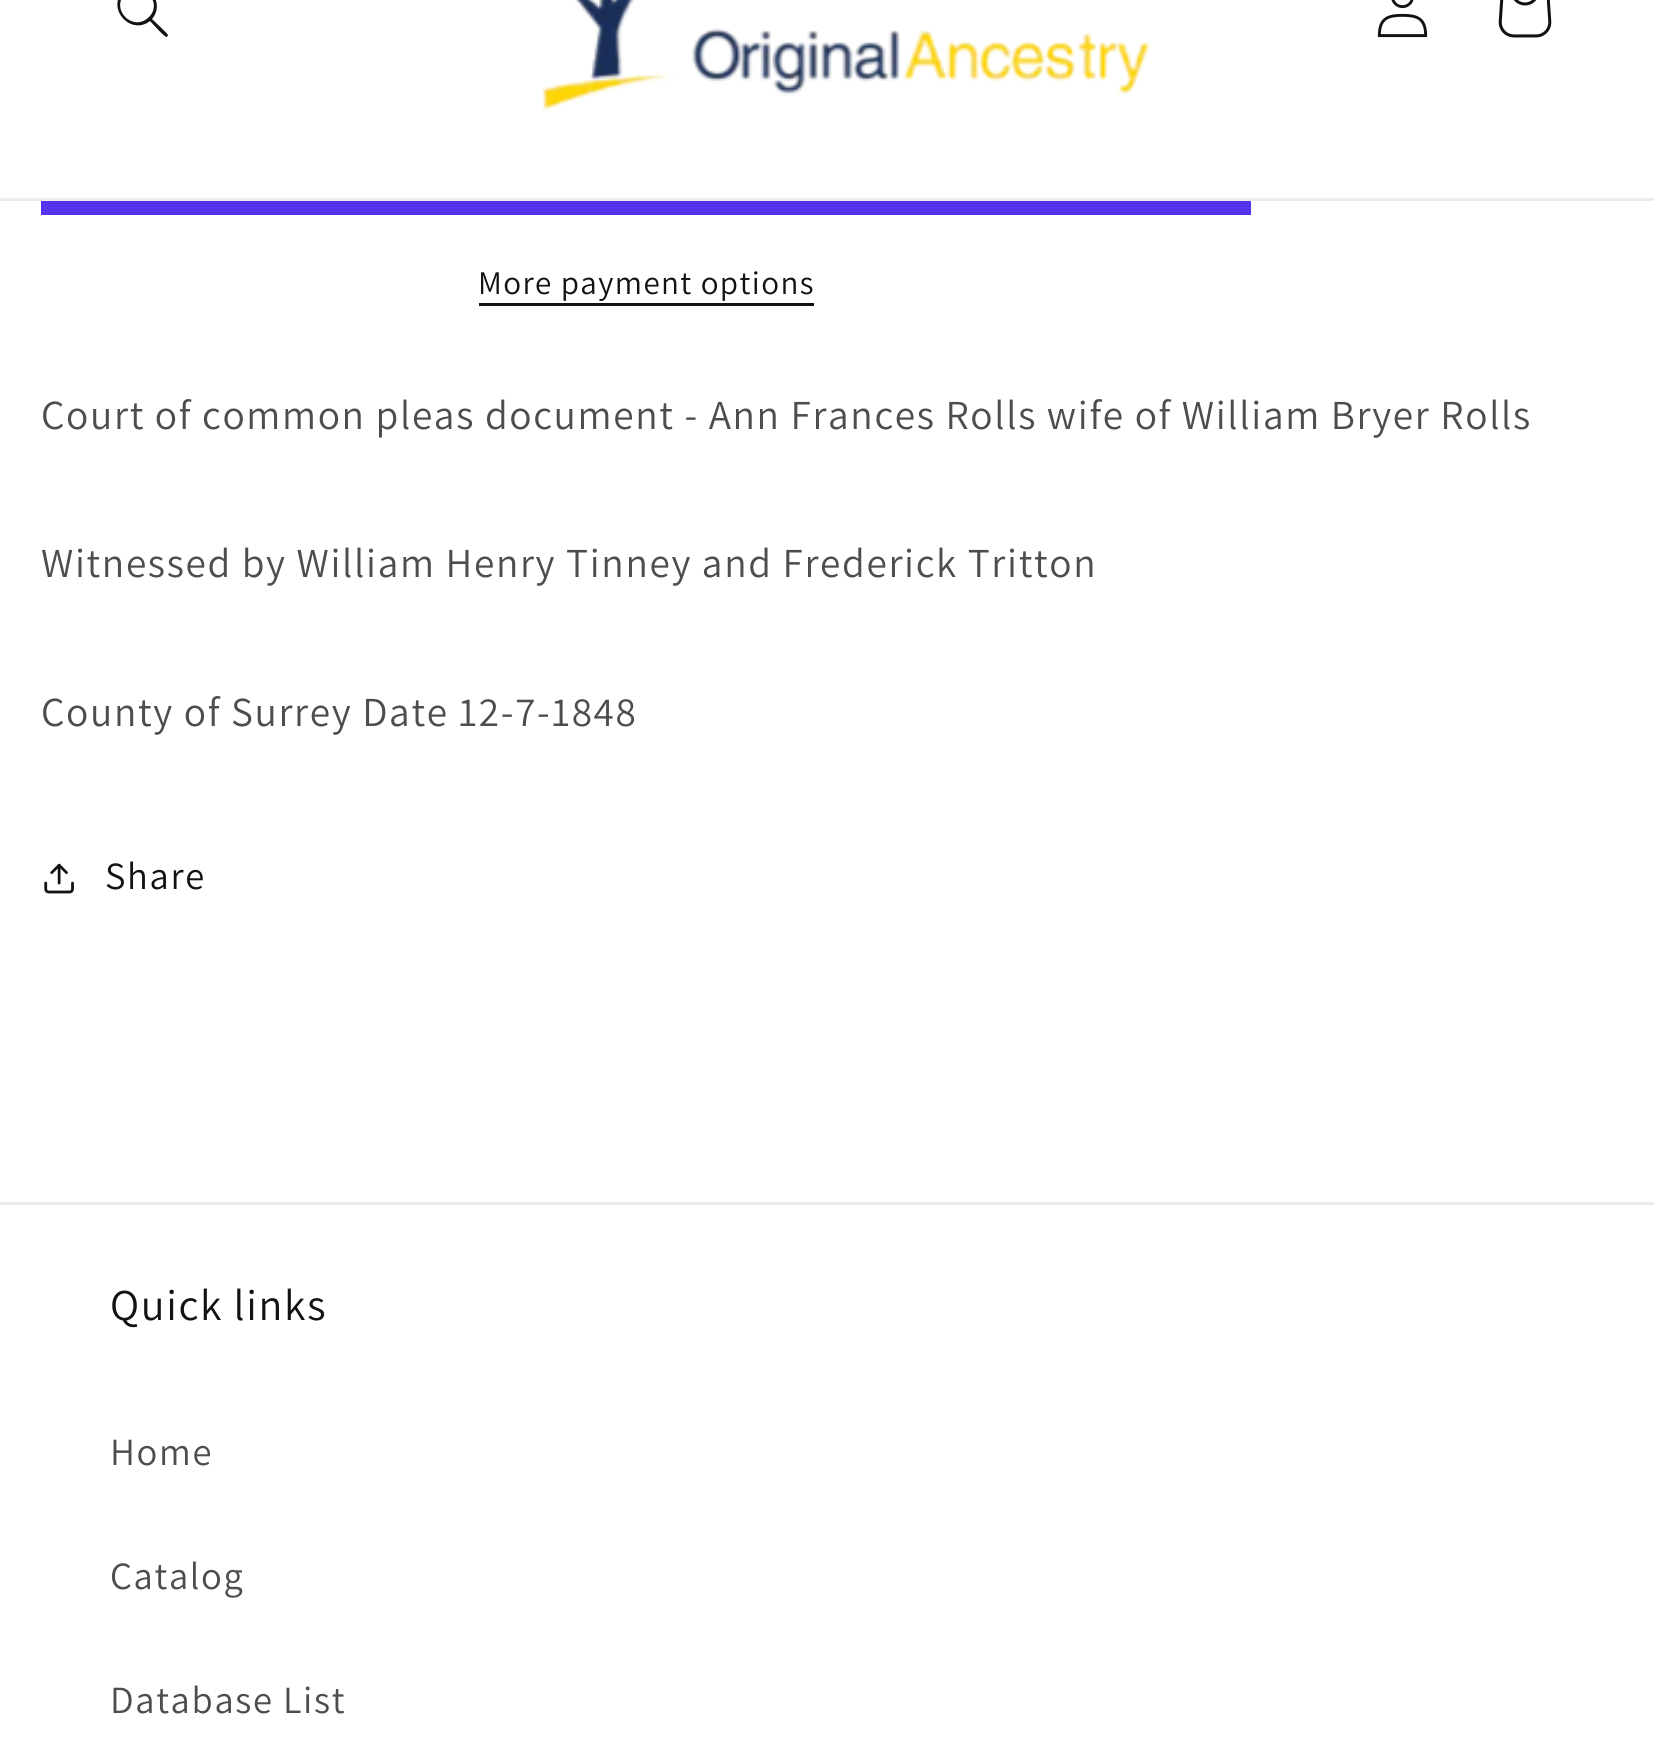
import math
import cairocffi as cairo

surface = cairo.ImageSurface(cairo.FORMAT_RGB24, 1654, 1743)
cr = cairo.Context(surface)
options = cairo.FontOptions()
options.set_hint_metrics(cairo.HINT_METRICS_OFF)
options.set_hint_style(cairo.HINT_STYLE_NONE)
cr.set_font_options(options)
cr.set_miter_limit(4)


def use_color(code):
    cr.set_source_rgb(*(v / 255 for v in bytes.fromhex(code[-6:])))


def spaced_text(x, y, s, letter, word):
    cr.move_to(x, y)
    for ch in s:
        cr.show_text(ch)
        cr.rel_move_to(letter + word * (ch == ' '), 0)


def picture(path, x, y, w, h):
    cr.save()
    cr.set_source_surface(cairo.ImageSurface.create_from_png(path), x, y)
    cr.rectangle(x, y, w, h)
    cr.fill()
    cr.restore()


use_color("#ffffff")
cr.paint()
use_color("#ececec")
cr.rectangle(0, 198, 1654, 3)
cr.fill()
use_color("#121212")
cr.set_fill_rule(cairo.FILL_RULE_EVEN_ODD)
cr.new_path()
cr.move_to(149, 17)
cr.curve_to(133, 33, 110, 9, 125, -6)
cr.curve_to(141, -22, 164, 2, 149, 17)
cr.close_path()
cr.move_to(150, 21)
cr.curve_to(131, 36, 106, 9, 123, -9)
cr.curve_to(141, -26, 168, 0, 152, 19)
cr.curve_to(154, 21, 168, 34, 168, 35)
cr.line_to(167, 37)
cr.curve_to(165, 38, 152, 23, 150, 21)
cr.close_path()
cr.fill()
picture("img1.png", 541, 0, 610, 111)
picture("img2.png", 1377, 0, 51, 38)
picture("img3.png", 1498, 0, 54, 38)
use_color("#5433eb")
cr.rectangle(41, 201, 1210, 14)
cr.fill()
cr.select_font_face("Assistant")
cr.set_font_size(33)
use_color("#121212")
spaced_text(478, 294, "More payment options", 1.4, 0)
cr.rectangle(479, 303, 335, 3)
cr.fill()
cr.set_font_size(41.25)
use_color("#4d4d4d")
spaced_text(41, 429, "Court of common pleas document - Ann Frances Rolls wife of William Bryer Rolls", 1.65, 0)
spaced_text(41, 577, "Witnessed by William Henry Tinney and Frederick Tritton", 1.65, 0)
spaced_text(41, 726, "County of Surrey Date 12-7-1848", 1.65, 0)
picture("img4.png", 44, 863, 30, 31)
cr.set_font_size(38.5)
use_color("#121212")
spaced_text(105, 889, "Share", 1.65, 0)
use_color("#ececec")
cr.rectangle(0, 1202, 1654, 3)
cr.fill()
cr.set_font_size(44)
use_color("#121212")
spaced_text(110, 1320, "Quick links", 1.65, 0)
cr.set_font_size(38.5)
use_color("#4d4d4d")
spaced_text(110, 1465, "Home", 1.65, 0)
spaced_text(110, 1589, "Catalog", 1.65, 0)
spaced_text(110, 1713, "Database List", 1.65, 0)
surface.write_to_png("result.png")
